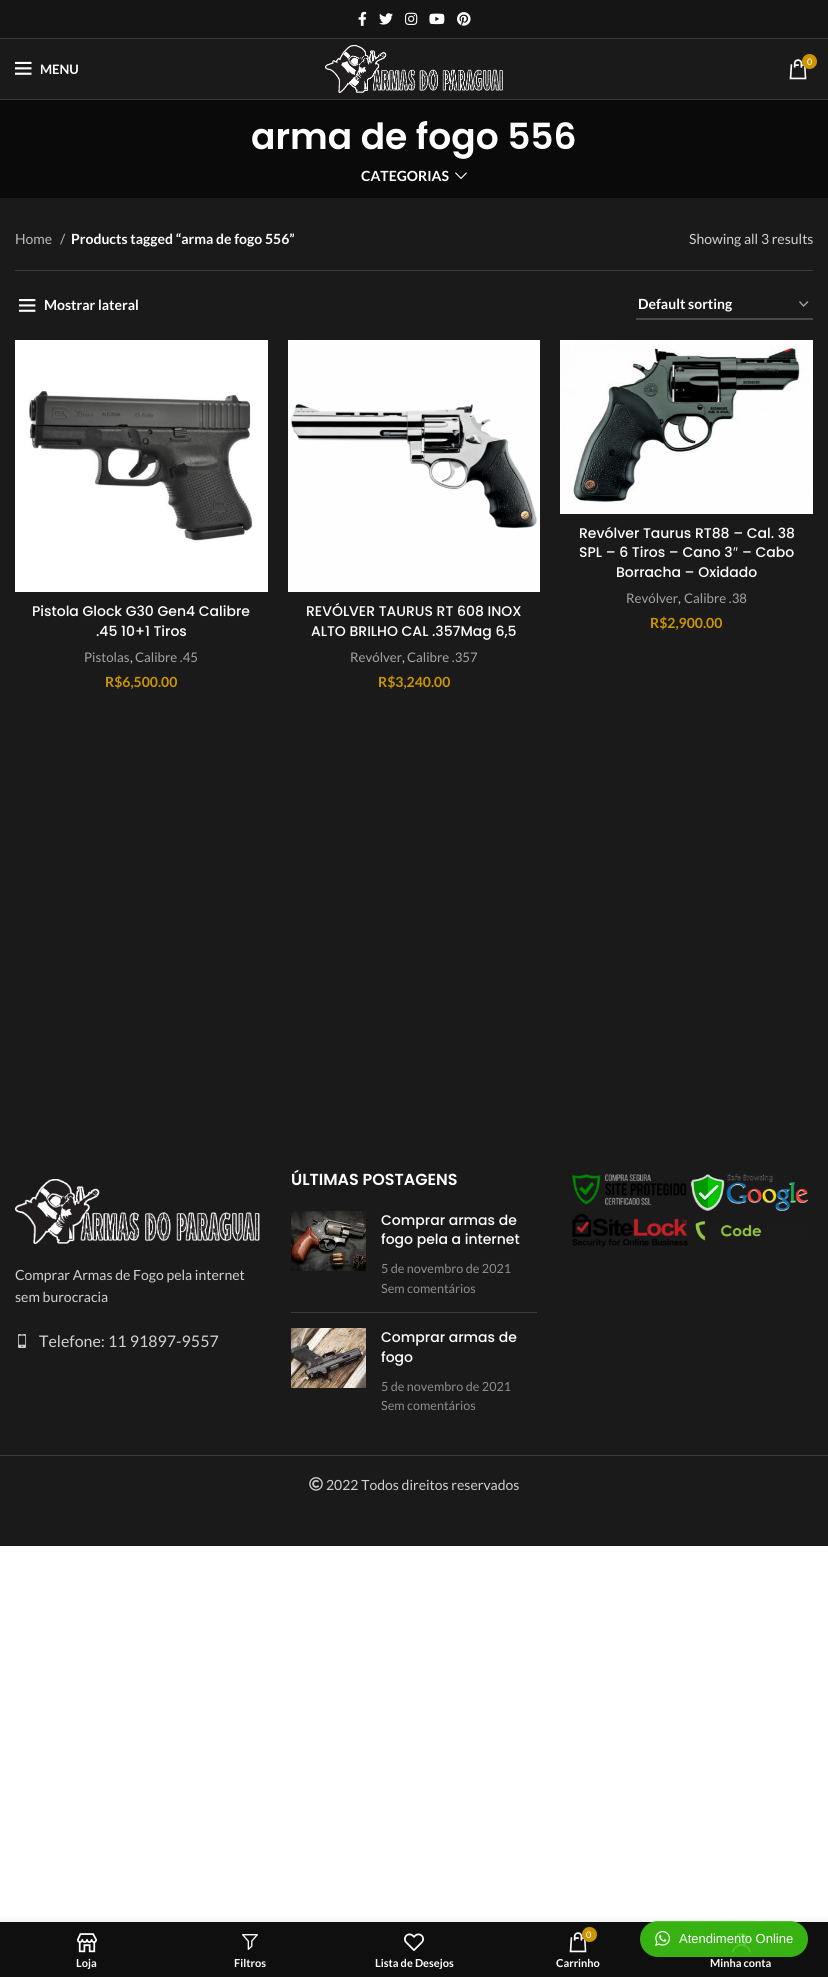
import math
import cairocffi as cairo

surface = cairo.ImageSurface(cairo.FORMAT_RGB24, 828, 1977)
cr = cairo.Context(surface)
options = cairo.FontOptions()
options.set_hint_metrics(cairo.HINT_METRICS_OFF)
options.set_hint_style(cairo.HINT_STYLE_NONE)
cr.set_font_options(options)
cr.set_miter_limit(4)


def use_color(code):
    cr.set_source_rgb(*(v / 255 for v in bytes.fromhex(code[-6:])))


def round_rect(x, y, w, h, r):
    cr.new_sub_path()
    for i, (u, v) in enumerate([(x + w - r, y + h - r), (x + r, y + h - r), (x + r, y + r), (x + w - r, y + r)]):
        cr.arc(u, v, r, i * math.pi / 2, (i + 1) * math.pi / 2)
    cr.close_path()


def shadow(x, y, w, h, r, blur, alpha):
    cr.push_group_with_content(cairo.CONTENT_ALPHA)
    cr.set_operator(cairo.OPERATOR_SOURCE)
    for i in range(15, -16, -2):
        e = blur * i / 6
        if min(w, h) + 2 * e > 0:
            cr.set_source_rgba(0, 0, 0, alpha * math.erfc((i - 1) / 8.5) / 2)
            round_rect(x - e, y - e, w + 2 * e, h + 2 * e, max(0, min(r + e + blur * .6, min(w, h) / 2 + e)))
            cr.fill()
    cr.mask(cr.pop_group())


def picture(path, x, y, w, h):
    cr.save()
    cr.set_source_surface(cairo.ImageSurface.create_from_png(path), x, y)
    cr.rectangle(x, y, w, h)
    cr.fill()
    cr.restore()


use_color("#ffffff")
cr.paint()
use_color("#1a1a1a")
cr.rectangle(0, 39, 828, 1507)
cr.fill()
use_color("#151515")
cr.rectangle(0, 0, 828, 38)
cr.fill()
use_color("#383838")
cr.rectangle(0, 38, 828, 1)
cr.fill()
picture("img1.png", 358, 11, 9, 15)
picture("img2.png", 379, 13, 14, 12)
picture("img3.png", 405, 12, 13, 13)
picture("img4.png", 429, 13, 16, 12)
picture("img5.png", 457, 12, 14, 14)
use_color("#3c3c3c")
cr.rectangle(0, 99, 828, 1)
cr.fill()
picture("img6.png", 325, 45, 178, 48)
picture("img7.png", 789, 59, 18, 21)
use_color("#cb9500")
cr.arc(809.5, 61.5, 7.5, 0, 2 * math.pi)
cr.fill()
cr.select_font_face("Lato")
cr.set_font_size(9)
use_color("#ffffff")
cr.move_to(807, 65)
cr.show_text("0")
picture("img8.png", 15, 61, 17, 14)
cr.select_font_face("Lato", cairo.FONT_SLANT_NORMAL, cairo.FONT_WEIGHT_BOLD)
cr.set_font_size(13)
cr.move_to(40, 74)
cr.show_text("MENU")
use_color("#0a0a0a")
cr.rectangle(0, 100, 828, 98)
cr.fill()
cr.select_font_face("Poppins SemiBold")
cr.set_font_size(36)
use_color("#ffffff")
cr.move_to(251, 149)
cr.show_text("arma de fogo 556")
cr.select_font_face("Lato", cairo.FONT_SLANT_NORMAL, cairo.FONT_WEIGHT_BOLD)
cr.set_font_size(14)
cr.move_to(361, 181)
cr.show_text("CATEGORIAS")
picture("img9.png", 455, 172, 12, 8)
use_color("#3c3c3c")
cr.rectangle(15, 270, 798, 1)
cr.fill()
cr.select_font_face("Lato")
use_color("#bababa")
cr.move_to(15, 244)
cr.show_text("Home")
cr.move_to(60, 244)
cr.show_text("/")
cr.select_font_face("Lato", cairo.FONT_SLANT_NORMAL, cairo.FONT_WEIGHT_BOLD)
use_color("#ffffff")
cr.move_to(71, 244)
cr.show_text("Products tagged “arma de fogo 556”")
cr.select_font_face("Lato")
use_color("#d1d1d1")
cr.move_to(689, 244)
cr.show_text("Showing all 3 results")
picture("img10.png", 19, 299, 17, 13)
cr.select_font_face("Lato", cairo.FONT_SLANT_NORMAL, cairo.FONT_WEIGHT_BOLD)
use_color("#ffffff")
cr.move_to(44, 310)
cr.show_text("Mostrar lateral")
cr.new_path()
cr.move_to(799.5, 301.5)
cr.line_to(803.5, 306)
cr.line_to(808, 301.5)
use_color("#a3a3a3")
cr.set_line_width(1.4)
cr.stroke()
use_color("#484848")
cr.rectangle(636, 318, 177, 2)
cr.fill()
use_color("#ffffff")
cr.move_to(638, 309)
cr.show_text("Default sorting")
picture("img11.png", 560, 340, 253, 174)
cr.select_font_face("Poppins Medium")
cr.move_to(579, 538)
cr.show_text("Revólver Taurus RT88 – Cal. 38")
cr.move_to(579, 557)
cr.show_text("SPL – 6 Tiros – Cano 3")
cr.select_font_face("Liberation Sans")
cr.move_to(733, 557)
cr.show_text("″")
cr.select_font_face("Poppins Medium")
cr.move_to(742, 557)
cr.show_text("– Cabo")
cr.move_to(616, 577)
cr.show_text("Borracha – Oxidado")
cr.select_font_face("Lato")
cr.set_font_size(13.25)
use_color("#a3a3a3")
cr.move_to(626, 603)
cr.show_text("Revólver")
use_color("#d1d1d1")
cr.move_to(678, 603)
cr.show_text(",")
use_color("#a3a3a3")
cr.move_to(684, 603)
cr.show_text("Calibre .38")
cr.select_font_face("Lato", cairo.FONT_SLANT_NORMAL, cairo.FONT_WEIGHT_BOLD)
cr.set_font_size(14)
use_color("#cb9500")
cr.move_to(650, 628)
cr.show_text("R$2,900.00")
picture("img12.png", 15, 340, 253, 252)
cr.select_font_face("Poppins Medium")
use_color("#ffffff")
cr.move_to(32, 616)
cr.show_text("Pistola Glock G30 Gen4 Calibre")
cr.move_to(96, 636)
cr.show_text(".45 10+1 Tiros")
cr.select_font_face("Lato")
cr.set_font_size(13.25)
use_color("#a3a3a3")
cr.move_to(84, 662)
cr.show_text("Pistolas")
use_color("#d1d1d1")
cr.move_to(130, 662)
cr.show_text(",")
use_color("#a3a3a3")
cr.move_to(135, 662)
cr.show_text("Calibre .45")
cr.select_font_face("Lato", cairo.FONT_SLANT_NORMAL, cairo.FONT_WEIGHT_BOLD)
cr.set_font_size(14)
use_color("#cb9500")
cr.move_to(105, 687)
cr.show_text("R$6,500.00")
picture("img13.png", 288, 340, 252, 252)
cr.select_font_face("Poppins Medium")
use_color("#ffffff")
cr.move_to(306, 616)
cr.show_text("REVÓLVER TAURUS RT 608 INOX")
cr.move_to(311, 636)
cr.show_text("ALTO BRILHO CAL .357Mag 6,5")
cr.select_font_face("Lato")
cr.set_font_size(13.25)
use_color("#a3a3a3")
cr.move_to(350, 662)
cr.show_text("Revólver")
use_color("#d1d1d1")
cr.move_to(402, 662)
cr.show_text(",")
use_color("#a3a3a3")
cr.move_to(407, 662)
cr.show_text("Calibre .357")
cr.select_font_face("Lato", cairo.FONT_SLANT_NORMAL, cairo.FONT_WEIGHT_BOLD)
cr.set_font_size(14)
use_color("#cb9500")
cr.move_to(378, 687)
cr.show_text("R$3,240.00")
cr.select_font_face("Poppins SemiBold")
cr.set_font_size(16)
use_color("#ffffff")
cr.move_to(291, 1185)
cr.show_text("ÚLTIMAS POSTAGENS")
use_color("#3c3c3c")
cr.rectangle(291, 1312, 246, 1)
cr.fill()
picture("img14.png", 291, 1211, 75, 60)
cr.select_font_face("Poppins Medium")
cr.set_font_size(14)
use_color("#ffffff")
cr.move_to(381, 1225)
cr.show_text("Comprar armas de")
cr.move_to(381, 1244)
cr.show_text("fogo pela a internet")
cr.select_font_face("Lato")
cr.set_font_size(12.6)
use_color("#8d8d8d")
cr.move_to(381, 1273)
cr.show_text("5 de novembro de 2021")
cr.move_to(381, 1293)
cr.show_text("Sem comentários")
picture("img15.png", 291, 1328, 75, 60)
cr.select_font_face("Poppins Medium")
cr.set_font_size(14)
use_color("#ffffff")
cr.move_to(381, 1342)
cr.show_text("Comprar armas de")
cr.move_to(381, 1362)
cr.show_text("fogo")
cr.select_font_face("Lato")
cr.set_font_size(12.6)
use_color("#8d8d8d")
cr.move_to(381, 1391)
cr.show_text("5 de novembro de 2021")
cr.move_to(381, 1410)
cr.show_text("Sem comentários")
picture("img16.png", 572, 1173, 236, 75)
picture("img17.png", 15, 1179, 245, 65)
cr.set_font_size(14)
use_color("#d1d1d1")
cr.move_to(15, 1280)
cr.show_text("Comprar Armas de Fogo pela internet")
cr.move_to(15, 1302)
cr.show_text("sem burocracia")
picture("img18.png", 18, 1334, 8, 14)
cr.set_font_size(16)
cr.move_to(39, 1347)
cr.show_text("Telefone: 11 91897-9557")
use_color("#3c3c3c")
cr.rectangle(0, 1455, 828, 1)
cr.fill()
picture("img19.png", 309, 1477, 14, 14)
cr.set_font_size(14)
use_color("#d1d1d1")
cr.move_to(326, 1490)
cr.show_text("2022 Todos direitos reservados")
use_color("#000000")
shadow(0, 1922, 828, 55, 0, 4.5, 0.12)
use_color("#0f0f0f")
cr.rectangle(0, 1922, 828, 55)
cr.fill()
picture("img20.png", 77, 1933, 20, 20)
cr.select_font_face("Lato", cairo.FONT_SLANT_NORMAL, cairo.FONT_WEIGHT_BOLD)
cr.set_font_size(11)
use_color("#ffffff")
cr.move_to(76, 1967)
cr.show_text("Loja")
picture("img21.png", 242, 1934, 16, 16)
cr.move_to(234, 1967)
cr.show_text("Filtros")
picture("img22.png", 404, 1933, 20, 18)
cr.move_to(375, 1967)
cr.show_text("Lista de Desejos")
picture("img23.png", 569, 1932, 18, 21)
use_color("#cb9500")
cr.arc(589.5, 1934.5, 7.5, 0, 2 * math.pi)
cr.fill()
cr.select_font_face("Lato")
cr.set_font_size(9)
use_color("#ffffff")
cr.move_to(586, 1938)
cr.show_text("0")
cr.select_font_face("Lato", cairo.FONT_SLANT_NORMAL, cairo.FONT_WEIGHT_BOLD)
cr.set_font_size(11)
cr.move_to(556, 1967)
cr.show_text("Carrinho")
picture("img24.png", 732, 1933, 19, 20)
cr.move_to(710, 1967)
cr.show_text("Minha conta")
cr.set_source_rgba(0.235, 0.769, 0.075, 0.9)
round_rect(640, 1921, 168, 36, 18)
cr.fill()
picture("img25.png", 655, 1931, 15, 15)
cr.select_font_face("Liberation Sans")
cr.set_font_size(13)
use_color("#ffffff")
cr.move_to(679, 1943)
cr.show_text("Atendimento Online")
surface.write_to_png("result.png")
